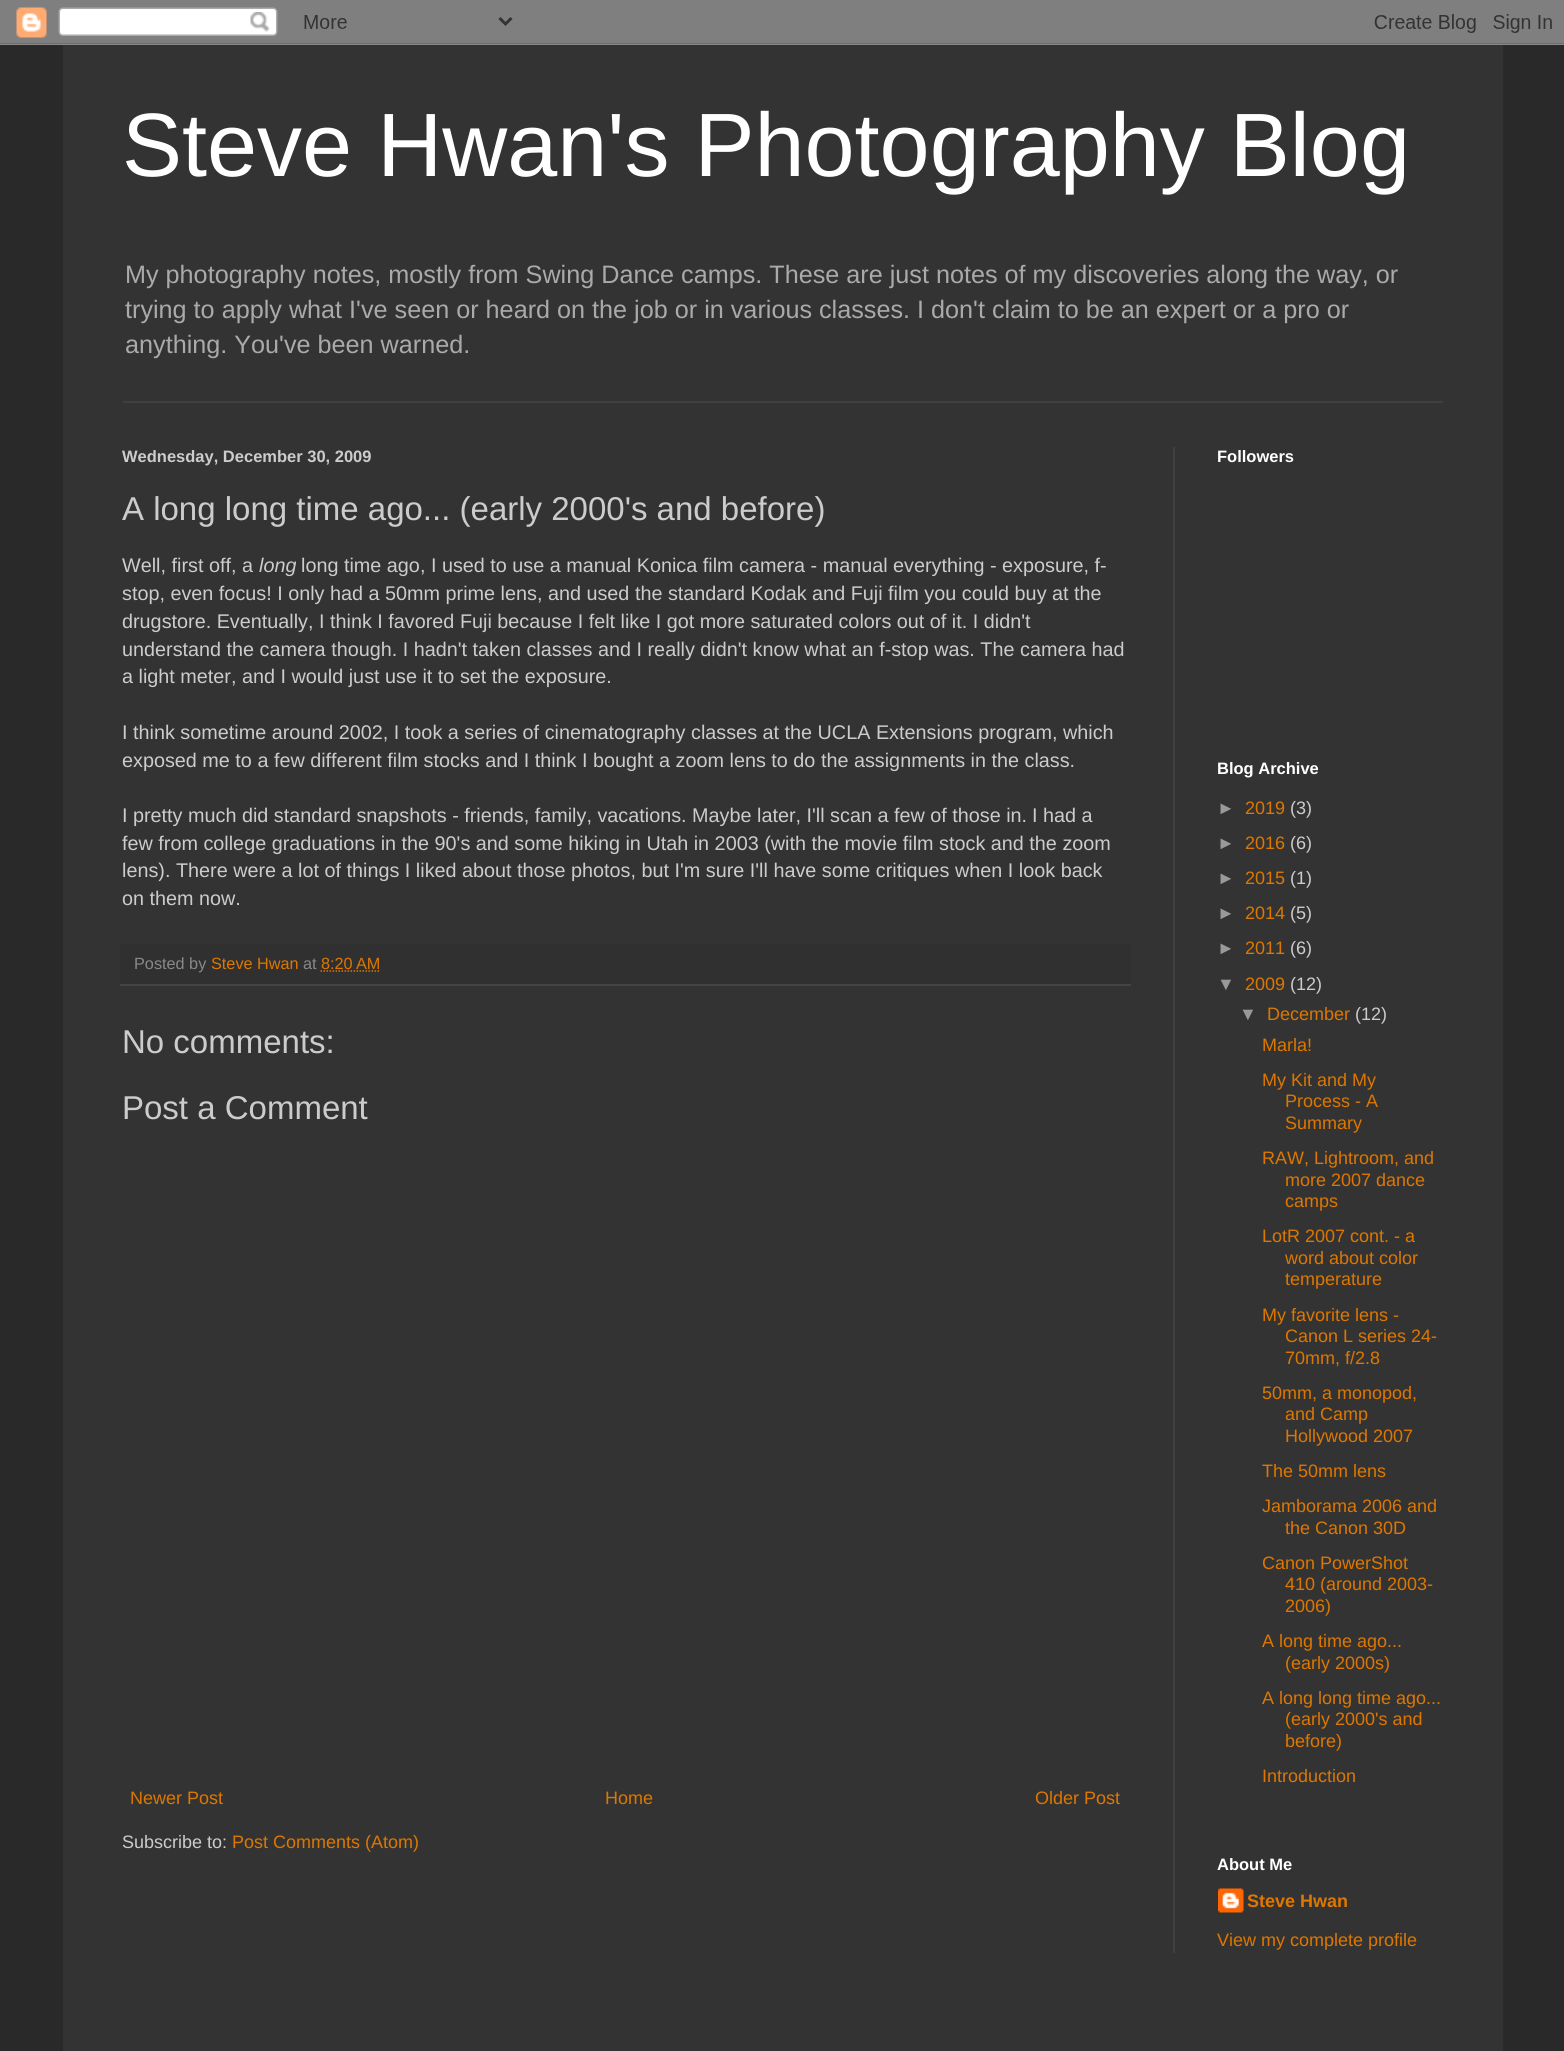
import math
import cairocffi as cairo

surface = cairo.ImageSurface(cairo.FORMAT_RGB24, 1564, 2051)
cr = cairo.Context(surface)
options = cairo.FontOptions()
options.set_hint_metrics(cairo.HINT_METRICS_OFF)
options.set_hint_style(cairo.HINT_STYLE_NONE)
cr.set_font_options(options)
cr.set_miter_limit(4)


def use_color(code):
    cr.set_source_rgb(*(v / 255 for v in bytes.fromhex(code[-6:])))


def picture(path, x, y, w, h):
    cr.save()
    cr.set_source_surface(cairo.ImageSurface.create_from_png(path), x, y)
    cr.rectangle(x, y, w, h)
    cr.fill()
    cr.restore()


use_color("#292929")
cr.paint()
picture("img1.png", 0, 0, 1564, 45)
use_color("#333333")
cr.rectangle(63, 45, 1440, 2006)
cr.fill()
cr.select_font_face("Liberation Sans")
cr.set_font_size(90)
use_color("#ffffff")
cr.move_to(122, 176)
cr.show_text("Steve Hwan's Photography Blog")
cr.set_font_size(25.2)
use_color("#aaaaaa")
cr.move_to(125, 283)
cr.show_text("My photography notes, mostly from Swing Dance camps. These are just notes of my discoveries along the way, or")
cr.move_to(125, 318)
cr.show_text("trying to apply what I've seen or heard on the job or in various classes. I don't claim to be an expert or a pro or")
cr.move_to(125, 353)
cr.show_text("anything. You've been warned.")
use_color("#404040")
cr.rectangle(123, 401, 1320, 2)
cr.fill()
cr.rectangle(1173, 447, 2, 1506)
cr.fill()
cr.select_font_face("Liberation Sans", cairo.FONT_SLANT_NORMAL, cairo.FONT_WEIGHT_BOLD)
cr.set_font_size(16.5)
use_color("#cccccc")
cr.move_to(122, 462)
cr.show_text("Wednesday, December 30, 2009")
cr.select_font_face("Liberation Sans")
cr.set_font_size(33)
cr.move_to(122, 520)
cr.show_text("A long long time ago... (early 2000's and before)")
cr.set_font_size(19.8)
cr.move_to(122, 572)
cr.show_text("Well, first off, a")
cr.select_font_face("Liberation Sans", cairo.FONT_SLANT_ITALIC)
cr.move_to(259, 572)
cr.show_text("long")
cr.select_font_face("Liberation Sans")
cr.move_to(301, 572)
cr.show_text("long time ago, I used to use a manual Konica film camera - manual everything - exposure, f-")
cr.move_to(122, 600)
cr.show_text("stop, even focus! I only had a 50mm prime lens, and used the standard Kodak and Fuji film you could buy at the")
cr.move_to(122, 628)
cr.show_text("drugstore. Eventually, I think I favored Fuji because I felt like I got more saturated colors out of it. I didn't")
cr.move_to(122, 656)
cr.show_text("understand the camera though. I hadn't taken classes and I really didn't know what an f-stop was. The camera had")
cr.move_to(122, 683)
cr.show_text("a light meter, and I would just use it to set the exposure.")
cr.move_to(122, 739)
cr.show_text("I think sometime around 2002, I took a series of cinematography classes at the UCLA Extensions program, which")
cr.move_to(122, 767)
cr.show_text("exposed me to a few different film stocks and I think I bought a zoom lens to do the assignments in the class.")
cr.move_to(122, 822)
cr.show_text("I pretty much did standard snapshots - friends, family, vacations. Maybe later, I'll scan a few of those in.")
cr.move_to(1032, 822)
cr.show_text("I had a")
cr.move_to(122, 850)
cr.show_text("few from college graduations in the 90's and some hiking in Utah in 2003 (with the movie film stock and the zoom")
cr.move_to(122, 877)
cr.show_text("lens). There were a lot of things I liked about those photos, but I'm sure I'll have some critiques when I look back")
cr.move_to(122, 905)
cr.show_text("on them now.")
use_color("#303030")
cr.rectangle(120, 944, 1011, 40)
cr.fill()
use_color("#444444")
cr.rectangle(120, 984, 1011, 2)
cr.fill()
cr.set_font_size(16.25)
use_color("#888888")
cr.move_to(134, 969)
cr.show_text("Posted by")
use_color("#dd7700")
cr.move_to(211, 969)
cr.show_text("Steve Hwan")
use_color("#888888")
cr.move_to(303, 969)
cr.show_text("at")
use_color("#dd7700")
cr.move_to(321, 969)
cr.show_text("8:20 AM")
cr.new_path()
cr.move_to(320.5, 971)
cr.line_to(379.5, 971)
cr.set_line_width(1.5)
cr.set_dash([1.5, 1.5])
cr.stroke()
cr.set_font_size(33)
use_color("#cccccc")
cr.move_to(122, 1053)
cr.show_text("No comments:")
cr.move_to(122, 1119)
cr.show_text("Post a Comment")
cr.set_font_size(18)
use_color("#dd7700")
cr.move_to(130, 1804)
cr.show_text("Newer Post")
cr.move_to(605, 1804)
cr.show_text("Home")
cr.move_to(1035, 1804)
cr.show_text("Older Post")
use_color("#cccccc")
cr.move_to(122, 1848)
cr.show_text("Subscribe to:")
use_color("#dd7700")
cr.move_to(232, 1848)
cr.show_text("Post Comments (Atom)")
cr.select_font_face("Liberation Sans", cairo.FONT_SLANT_NORMAL, cairo.FONT_WEIGHT_BOLD)
cr.set_font_size(16.5)
use_color("#ffffff")
cr.move_to(1217, 462)
cr.show_text("Followers")
cr.move_to(1217, 774)
cr.show_text("Blog Archive")
cr.select_font_face("Liberation Sans")
cr.set_font_size(18)
use_color("#999999")
cr.move_to(1217, 814)
cr.show_text("►")
use_color("#dd7700")
cr.move_to(1245, 814)
cr.show_text("2019")
use_color("#cccccc")
cr.move_to(1290, 814)
cr.show_text("(3)")
use_color("#999999")
cr.move_to(1217, 849)
cr.show_text("►")
use_color("#dd7700")
cr.move_to(1245, 849)
cr.show_text("2016")
use_color("#cccccc")
cr.move_to(1290, 849)
cr.show_text("(6)")
use_color("#999999")
cr.move_to(1217, 884)
cr.show_text("►")
use_color("#dd7700")
cr.move_to(1245, 884)
cr.show_text("2015")
use_color("#cccccc")
cr.move_to(1290, 884)
cr.show_text("(1)")
use_color("#999999")
cr.move_to(1217, 919)
cr.show_text("►")
use_color("#dd7700")
cr.move_to(1245, 919)
cr.show_text("2014")
use_color("#cccccc")
cr.move_to(1290, 919)
cr.show_text("(5)")
use_color("#999999")
cr.move_to(1217, 954)
cr.show_text("►")
use_color("#dd7700")
cr.move_to(1245, 954)
cr.show_text("2011")
use_color("#cccccc")
cr.move_to(1290, 954)
cr.show_text("(6)")
use_color("#999999")
cr.move_to(1217, 990)
cr.show_text("▼")
use_color("#dd7700")
cr.move_to(1245, 990)
cr.show_text("2009")
use_color("#cccccc")
cr.move_to(1290, 990)
cr.show_text("(12)")
use_color("#999999")
cr.move_to(1239, 1020)
cr.show_text("▼")
use_color("#dd7700")
cr.move_to(1267, 1020)
cr.show_text("December")
use_color("#cccccc")
cr.move_to(1355, 1020)
cr.show_text("(12)")
use_color("#dd7700")
cr.move_to(1262, 1051)
cr.show_text("Marla!")
cr.move_to(1262, 1086)
cr.show_text("My Kit and My")
cr.move_to(1285, 1107)
cr.show_text("Process - A")
cr.move_to(1285, 1129)
cr.show_text("Summary")
cr.move_to(1262, 1164)
cr.show_text("RAW, Lightroom, and")
cr.move_to(1285, 1186)
cr.show_text("more 2007 dance")
cr.move_to(1285, 1207)
cr.show_text("camps")
cr.move_to(1262, 1242)
cr.show_text("LotR 2007 cont. - a")
cr.move_to(1285, 1264)
cr.show_text("word about color")
cr.move_to(1285, 1285)
cr.show_text("temperature")
cr.move_to(1262, 1321)
cr.show_text("My favorite lens -")
cr.move_to(1285, 1342)
cr.show_text("Canon L series 24-")
cr.move_to(1285, 1364)
cr.show_text("70mm, f/2.8")
cr.move_to(1262, 1399)
cr.show_text("50mm, a monopod,")
cr.move_to(1285, 1420)
cr.show_text("and Camp")
cr.move_to(1285, 1442)
cr.show_text("Hollywood 2007")
cr.move_to(1262, 1477)
cr.show_text("The 50mm lens")
cr.move_to(1262, 1512)
cr.show_text("Jamborama 2006 and")
cr.move_to(1285, 1534)
cr.show_text("the Canon 30D")
cr.move_to(1262, 1569)
cr.show_text("Canon PowerShot")
cr.move_to(1285, 1590)
cr.show_text("410 (around 2003-")
cr.move_to(1285, 1612)
cr.show_text("2006)")
cr.move_to(1262, 1647)
cr.show_text("A long time ago...")
cr.move_to(1285, 1669)
cr.show_text("(early 2000s)")
cr.move_to(1262, 1704)
cr.show_text("A long long time ago...")
cr.move_to(1285, 1725)
cr.show_text("(early 2000's and")
cr.move_to(1285, 1747)
cr.show_text("before)")
cr.move_to(1262, 1782)
cr.show_text("Introduction")
cr.select_font_face("Liberation Sans", cairo.FONT_SLANT_NORMAL, cairo.FONT_WEIGHT_BOLD)
cr.set_font_size(16.5)
use_color("#ffffff")
cr.move_to(1217, 1870)
cr.show_text("About Me")
picture("img2.png", 1218, 1888, 26, 25)
cr.set_font_size(18)
use_color("#dd7700")
cr.move_to(1247, 1907)
cr.show_text("Steve Hwan")
cr.select_font_face("Liberation Sans")
cr.move_to(1217, 1946)
cr.show_text("View my complete profile")
surface.write_to_png("result.png")
